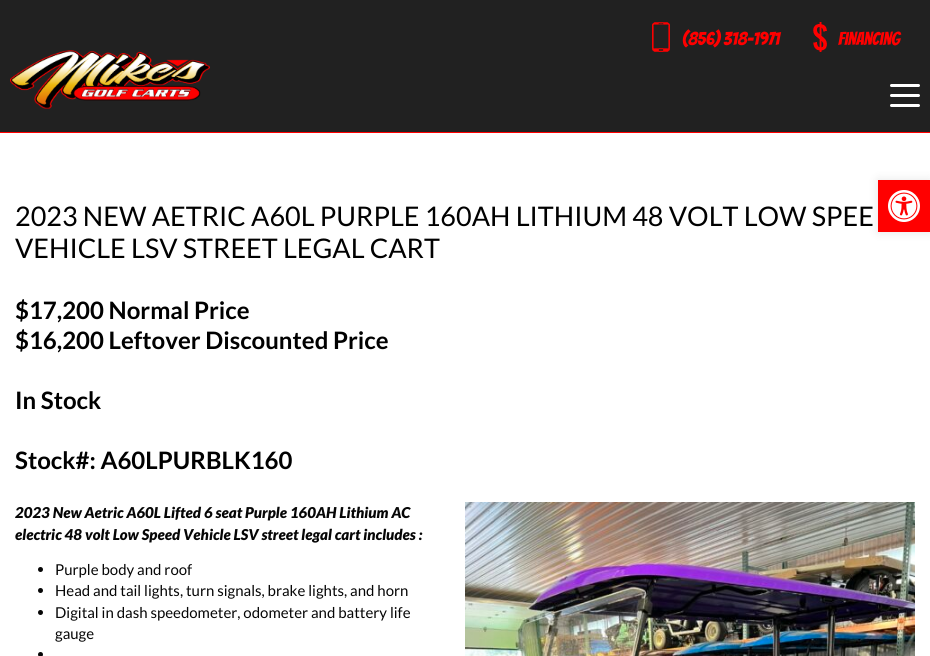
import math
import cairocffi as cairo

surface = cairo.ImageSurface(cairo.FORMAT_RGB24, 930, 656)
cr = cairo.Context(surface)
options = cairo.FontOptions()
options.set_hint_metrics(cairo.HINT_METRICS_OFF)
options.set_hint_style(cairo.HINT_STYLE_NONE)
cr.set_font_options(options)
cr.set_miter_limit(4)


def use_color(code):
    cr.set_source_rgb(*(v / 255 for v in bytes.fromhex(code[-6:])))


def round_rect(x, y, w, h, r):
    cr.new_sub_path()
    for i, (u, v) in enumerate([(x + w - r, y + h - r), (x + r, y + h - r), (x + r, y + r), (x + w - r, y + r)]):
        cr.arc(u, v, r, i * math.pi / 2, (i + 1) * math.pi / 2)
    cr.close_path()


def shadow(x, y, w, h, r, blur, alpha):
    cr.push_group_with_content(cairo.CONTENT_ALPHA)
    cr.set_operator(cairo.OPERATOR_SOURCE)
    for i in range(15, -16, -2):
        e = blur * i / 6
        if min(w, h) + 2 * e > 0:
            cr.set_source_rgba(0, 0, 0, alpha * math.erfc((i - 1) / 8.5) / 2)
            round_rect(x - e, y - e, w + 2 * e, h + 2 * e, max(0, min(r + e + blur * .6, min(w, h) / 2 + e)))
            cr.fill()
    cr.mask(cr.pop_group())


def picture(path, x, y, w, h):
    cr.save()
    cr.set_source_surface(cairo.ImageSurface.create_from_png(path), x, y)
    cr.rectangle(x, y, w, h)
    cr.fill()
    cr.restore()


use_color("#ffffff")
cr.paint()
use_color("#212121")
cr.rectangle(0, 0, 930, 132)
cr.fill()
use_color("#ff0000")
cr.rectangle(0, 132, 930, 1)
cr.fill()
picture("img1.png", 652, 22, 18, 30)
cr.select_font_face("Bangers")
cr.set_font_size(18)
cr.move_to(682, 45)
cr.show_text("(856) 318-1971")
picture("img2.png", 813, 22, 14, 30)
cr.move_to(838, 45)
cr.show_text("Financing")
picture("img3.png", 10, 50, 200, 59)
cr.select_font_face("Lato")
cr.set_font_size(27)
use_color("#000000")
cr.move_to(15, 226)
cr.show_text("2023 NEW AETRIC A60L PURPLE 160AH LITHIUM 48 VOLT LOW SPEE")
cr.move_to(15, 258)
cr.show_text("VEHICLE LSV STREET LEGAL CART")
cr.select_font_face("Lato", cairo.FONT_SLANT_NORMAL, cairo.FONT_WEIGHT_BOLD)
cr.set_font_size(24)
cr.move_to(15, 319)
cr.show_text("$17,200 Normal Price")
cr.move_to(15, 349)
cr.show_text("$16,200 Leftover Discounted Price")
cr.move_to(15, 409)
cr.show_text("In Stock")
cr.move_to(15, 469)
cr.show_text("Stock#: A60LPURBLK160")
cr.select_font_face("Lato Black", cairo.FONT_SLANT_ITALIC)
cr.set_font_size(15)
use_color("#060606")
cr.move_to(15, 518)
cr.show_text("2023 New Aetric A60L Lifted 6 seat Purple 160AH Lithium AC")
cr.move_to(15, 540)
cr.show_text("electric 48 volt Low Speed Vehicle LSV street legal cart includes :")
cr.new_path()
cr.arc(40.5, 569.5, 2.5, 0, 2 * math.pi)
cr.fill()
cr.select_font_face("Lato")
cr.move_to(55, 575)
cr.show_text("Purple body and roof")
cr.new_path()
cr.arc(40.5, 590.5, 2.5, 0, 2 * math.pi)
cr.fill()
cr.move_to(55, 596)
cr.show_text("Head and tail lights, turn signals, brake lights, and horn")
cr.new_path()
cr.arc(40.5, 612.5, 2.5, 0, 2 * math.pi)
cr.fill()
cr.move_to(55, 618)
cr.show_text("Digital in dash speedometer, odometer and battery life")
cr.move_to(55, 639)
cr.show_text("gauge")
cr.new_path()
cr.arc(40.5, 654.5, 2.5, 0, 2 * math.pi)
cr.fill()
picture("img4.png", 465, 502, 450, 154)
use_color("#ffffff")
round_rect(890, 94, 30, 3, 1.5)
cr.fill()
round_rect(890, 84, 30, 3, 1.5)
cr.fill()
round_rect(890, 104, 30, 3, 1.5)
cr.fill()
use_color("#000000")
shadow(878, 180, 52, 52, 0, 5, 0.1)
use_color("#ff0000")
cr.rectangle(878, 180, 52, 52)
cr.fill()
picture("img5.png", 888, 190, 32, 32)
surface.write_to_png("result.png")
